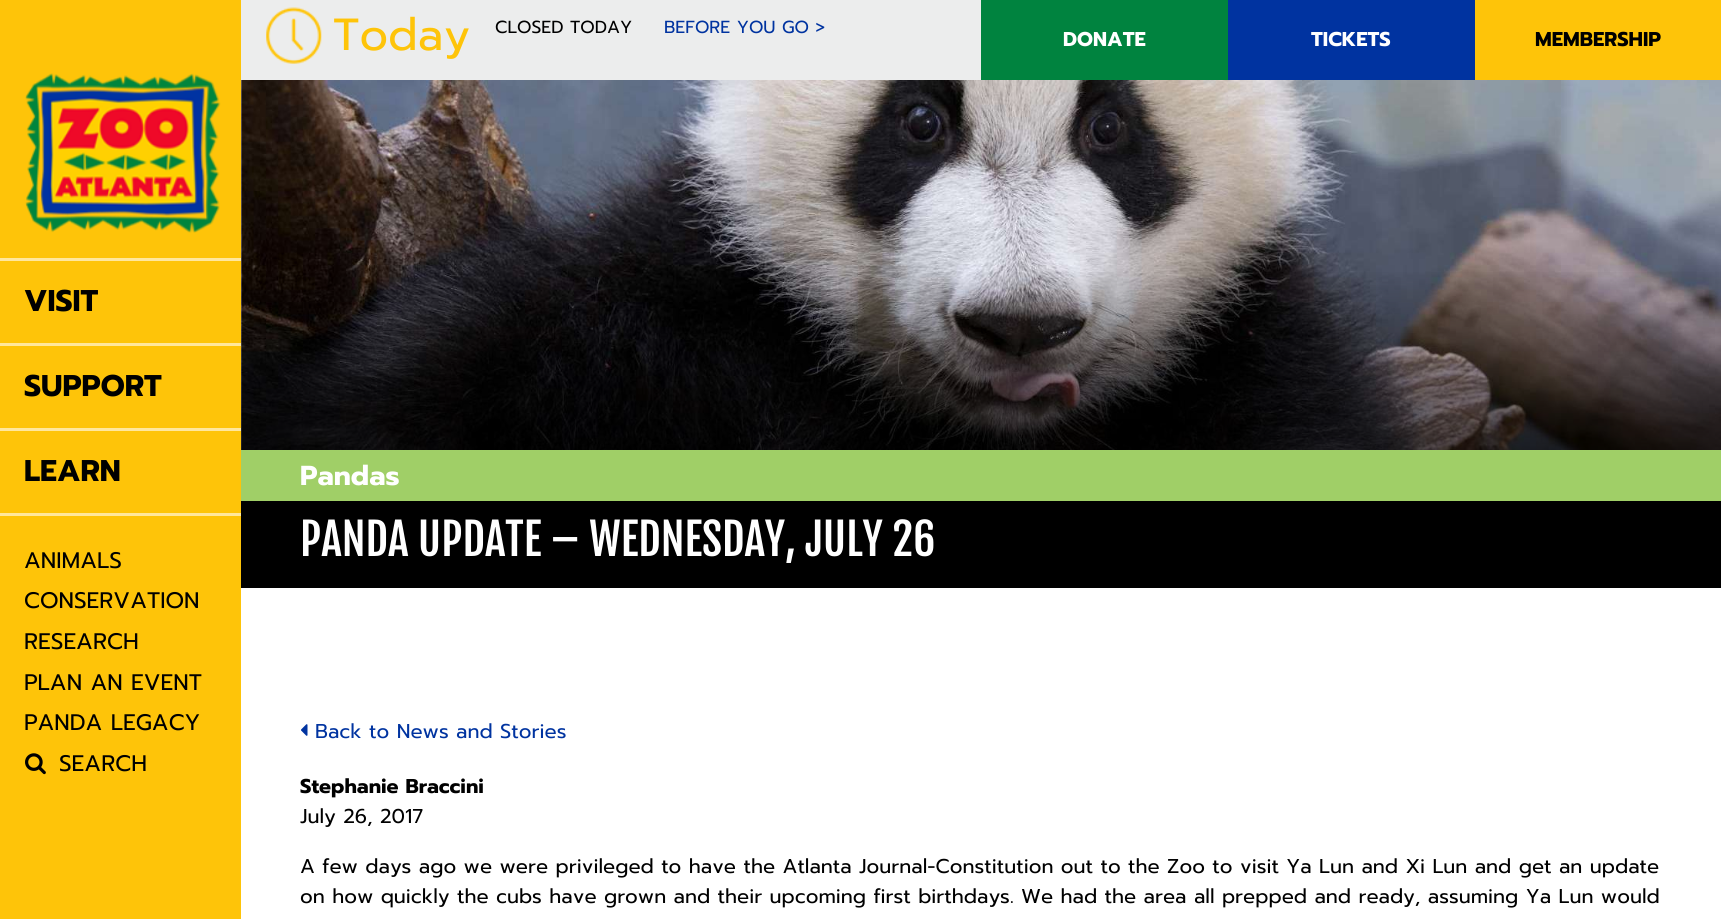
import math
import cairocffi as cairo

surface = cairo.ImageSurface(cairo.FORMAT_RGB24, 1721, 920)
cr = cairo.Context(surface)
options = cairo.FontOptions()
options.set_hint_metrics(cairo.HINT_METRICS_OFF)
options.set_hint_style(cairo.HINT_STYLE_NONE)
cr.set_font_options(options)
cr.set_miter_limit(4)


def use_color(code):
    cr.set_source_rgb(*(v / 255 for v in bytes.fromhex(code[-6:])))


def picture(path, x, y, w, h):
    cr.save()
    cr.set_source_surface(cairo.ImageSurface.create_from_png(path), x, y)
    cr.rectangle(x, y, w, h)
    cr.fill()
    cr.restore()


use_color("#fec409")
cr.paint()
use_color("#eceded")
cr.rectangle(241, 0, 740, 80)
cr.fill()
picture("img1.png", 266, 7, 56, 57)
cr.select_font_face("Prompt")
cr.set_font_size(45)
use_color("#fec409")
cr.move_to(333, 50)
cr.show_text("Today")
cr.set_font_size(17.5)
use_color("#000000")
cr.move_to(495, 33)
cr.show_text("CLOSED TODAY")
use_color("#0033a0")
cr.move_to(664, 33)
cr.show_text("BEFORE YOU GO >")
use_color("#00833f")
cr.rectangle(981, 0, 247, 80)
cr.fill()
cr.select_font_face("Prompt", cairo.FONT_SLANT_NORMAL, cairo.FONT_WEIGHT_BOLD)
cr.set_font_size(20)
use_color("#ffffff")
cr.move_to(1063, 46)
cr.show_text("DONATE")
use_color("#0033a0")
cr.rectangle(1228, 0, 247, 80)
cr.fill()
use_color("#ffffff")
cr.move_to(1311, 46)
cr.show_text("TICKETS")
use_color("#000000")
cr.move_to(1535, 46)
cr.show_text("MEMBERSHIP")
picture("img2.png", 25, 73, 196, 160)
use_color("#ffe79d")
cr.rectangle(0, 258, 241, 3)
cr.fill()
cr.rectangle(0, 343, 241, 3)
cr.fill()
cr.set_font_size(30)
use_color("#000000")
cr.move_to(24, 311)
cr.show_text("VISIT")
use_color("#ffe79d")
cr.rectangle(0, 428, 241, 3)
cr.fill()
use_color("#000000")
cr.move_to(24, 396)
cr.show_text("SUPPORT")
use_color("#ffe79d")
cr.rectangle(0, 513, 241, 3)
cr.fill()
use_color("#000000")
cr.move_to(24, 481)
cr.show_text("LEARN")
cr.select_font_face("Prompt")
cr.set_font_size(22.5)
cr.move_to(24, 568)
cr.show_text("ANIMALS")
cr.move_to(24, 608)
cr.show_text("CONSERVATION")
cr.move_to(24, 649)
cr.show_text("RESEARCH")
cr.move_to(24, 690)
cr.show_text("PLAN AN EVENT")
cr.move_to(24, 730)
cr.show_text("PANDA LEGACY")
picture("img3.png", 25, 753, 21, 22)
cr.move_to(59, 771)
cr.show_text("SEARCH")
use_color("#ffffff")
cr.rectangle(241, 80, 1480, 839)
cr.fill()
picture("img4.png", 241, 80, 1480, 370)
gradient = cairo.LinearGradient(981, 80, 981, 450)
gradient.add_color_stop_rgba(0.5, 0, 0, 0, 0)
gradient.add_color_stop_rgba(1, 0, 0, 0, 0.6)
cr.set_source(gradient)
cr.rectangle(241, 272, 1480, 178)
cr.fill()
use_color("#a0cf67")
cr.rectangle(241, 450, 1480, 51)
cr.fill()
cr.select_font_face("Prompt", cairo.FONT_SLANT_NORMAL, cairo.FONT_WEIGHT_BOLD)
cr.set_font_size(27.5)
use_color("#ffffff")
cr.move_to(300, 485)
cr.show_text("Pandas")
use_color("#000000")
cr.rectangle(241, 501, 1480, 87)
cr.fill()
cr.select_font_face("Fjalla One")
cr.set_font_size(43.75)
use_color("#ffffff")
cr.move_to(300, 556)
cr.show_text("PANDA UPDATE – WEDNESDAY, JULY 26")
picture("img5.png", 301, 724, 7, 12)
cr.select_font_face("Prompt")
cr.set_font_size(20)
use_color("#0033a0")
cr.move_to(315, 738)
cr.show_text("Back to News and Stories")
cr.select_font_face("Prompt", cairo.FONT_SLANT_NORMAL, cairo.FONT_WEIGHT_BOLD)
use_color("#000000")
cr.move_to(300, 793)
cr.show_text("Stephanie Braccini")
cr.select_font_face("Prompt")
cr.move_to(300, 823)
cr.show_text("July 26, 2017")
cr.move_to(300, 873)
cr.show_text("A few days ago we were privileged to have the Atlanta Journal-Constitution out to the Zoo to visit Ya Lun and Xi Lun and get an update")
cr.move_to(300, 903)
cr.show_text("on how quickly the cubs have grown and their upcoming first birthdays. We had the area all prepped and ready, assuming Ya Lun would")
use_color("#ffffff")
cr.rectangle(0, 919, 1721, 1)
cr.fill()
surface.write_to_png("result.png")
